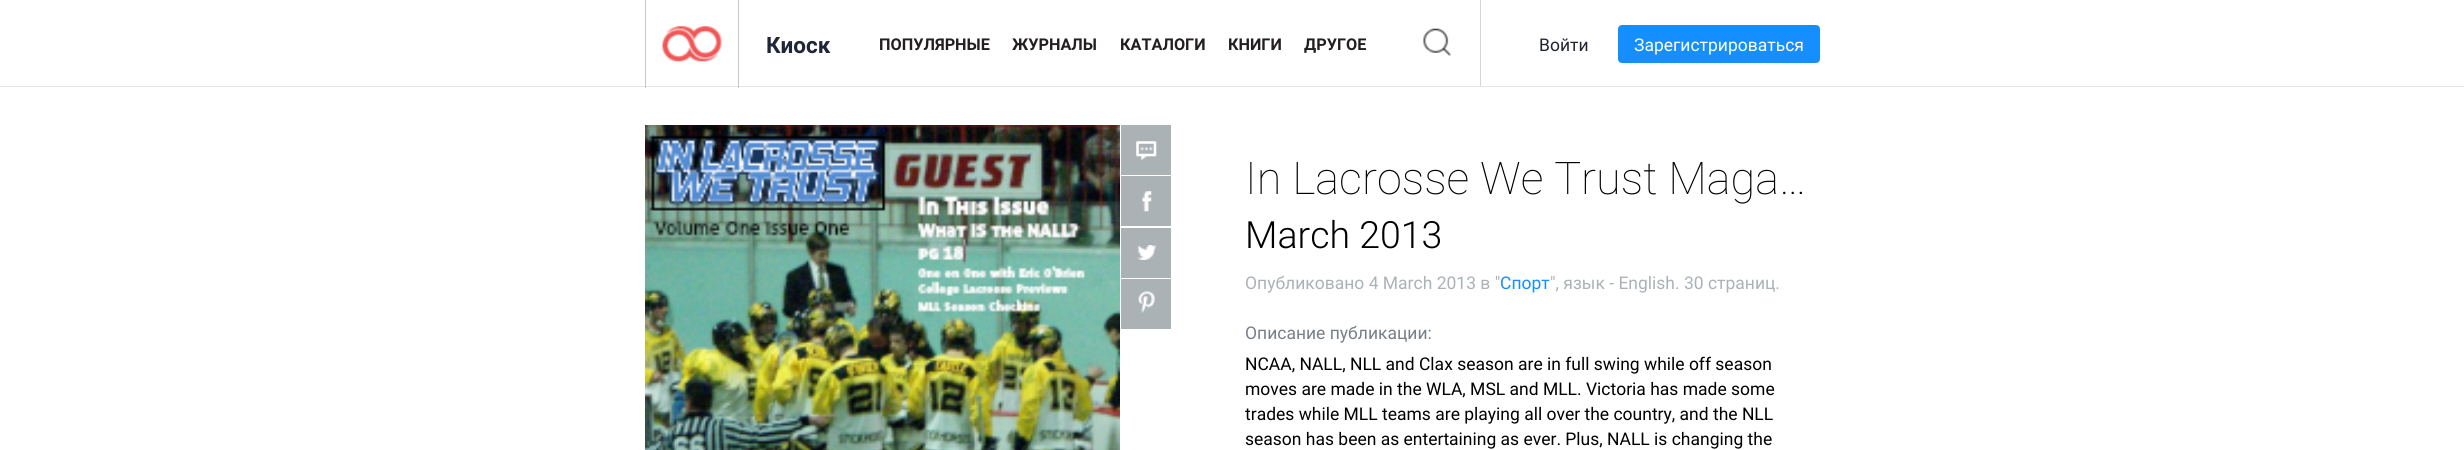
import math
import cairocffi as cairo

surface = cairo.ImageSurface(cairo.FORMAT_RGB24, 2464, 450)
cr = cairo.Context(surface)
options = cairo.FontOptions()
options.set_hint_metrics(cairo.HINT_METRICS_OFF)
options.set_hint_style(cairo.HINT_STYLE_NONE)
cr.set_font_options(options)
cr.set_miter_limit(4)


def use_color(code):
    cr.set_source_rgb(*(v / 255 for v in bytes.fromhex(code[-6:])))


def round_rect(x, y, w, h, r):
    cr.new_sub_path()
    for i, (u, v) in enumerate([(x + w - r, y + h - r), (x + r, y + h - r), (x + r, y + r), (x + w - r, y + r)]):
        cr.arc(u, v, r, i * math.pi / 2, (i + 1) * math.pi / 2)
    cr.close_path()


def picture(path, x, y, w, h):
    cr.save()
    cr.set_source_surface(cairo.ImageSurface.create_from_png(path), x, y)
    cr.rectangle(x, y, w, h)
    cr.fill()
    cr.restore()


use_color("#ffffff")
cr.paint()
use_color("#e5e5e5")
cr.rectangle(0, 86, 2464, 1)
cr.fill()
use_color("#c6c6c6")
cr.rectangle(738, 0, 1, 88)
cr.fill()
cr.rectangle(645, 0, 1, 88)
cr.fill()
picture("img1.png", 662, 26, 60, 36)
cr.select_font_face("Roboto", cairo.FONT_SLANT_NORMAL, cairo.FONT_WEIGHT_BOLD)
cr.set_font_size(22.5)
use_color("#1e2638")
cr.move_to(766, 53)
cr.show_text("Киоск")
cr.set_font_size(16.25)
use_color("#231f20")
cr.move_to(879, 50)
cr.show_text("ПОПУЛЯРНЫЕ")
cr.move_to(1012, 50)
cr.show_text("ЖУРНАЛЫ")
cr.move_to(1120, 50)
cr.show_text("КАТАЛОГИ")
cr.move_to(1228, 50)
cr.show_text("КНИГИ")
cr.move_to(1304, 50)
cr.show_text("ДРУГОЕ")
use_color("#d2d7d9")
cr.rectangle(1480, 0, 1, 86)
cr.fill()
picture("img2.png", 1423, 28, 29, 28)
cr.select_font_face("Roboto")
cr.set_font_size(17.5)
use_color("#202532")
cr.move_to(1539, 51)
cr.show_text("Войти")
use_color("#158fff")
round_rect(1618, 25, 202, 38, 4)
cr.fill()
use_color("#ffffff")
cr.move_to(1634, 51)
cr.show_text("Зарегистрироваться")
picture("img3.png", 645, 125, 475, 325)
use_color("#abb2b6")
cr.rectangle(1121, 125, 50, 50)
cr.fill()
picture("img4.png", 1136, 141, 21, 19)
cr.rectangle(1121, 176, 50, 50)
cr.fill()
picture("img5.png", 1142, 191, 10, 21)
cr.rectangle(1121, 228, 50, 50)
cr.fill()
picture("img6.png", 1137, 245, 20, 15)
cr.rectangle(1121, 279, 50, 50)
cr.fill()
picture("img7.png", 1138, 291, 17, 22)
cr.select_font_face("Roboto Thin")
cr.set_font_size(45)
use_color("#000000")
cr.move_to(1245, 194)
cr.show_text("In Lacrosse We Trust Maga…")
cr.select_font_face("Roboto Light")
cr.set_font_size(37.5)
cr.move_to(1245, 248)
cr.show_text("March 2013")
cr.select_font_face("Roboto")
cr.set_font_size(17.5)
use_color("#abb2b6")
cr.move_to(1245, 289)
cr.show_text("Опубликовано 4 March 2013 в \"")
use_color("#158fff")
cr.move_to(1500, 289)
cr.show_text("Спорт")
use_color("#abb2b6")
cr.move_to(1550, 289)
cr.show_text("\", язык - English. 30 страниц.")
use_color("#777f86")
cr.move_to(1245, 339)
cr.show_text("Описание публикации:")
use_color("#000000")
cr.move_to(1245, 370)
cr.show_text("NCAA, NALL, NLL and Clax season are in full swing while off season")
cr.move_to(1245, 395)
cr.show_text("moves are made in the WLA, MSL and MLL. Victoria has made some")
cr.move_to(1245, 420)
cr.show_text("trades while MLL teams are playing all over the country, and the NLL")
cr.move_to(1245, 445)
cr.show_text("season has been as entertaining as ever. Plus, NALL is changing the")
surface.write_to_png("result.png")
